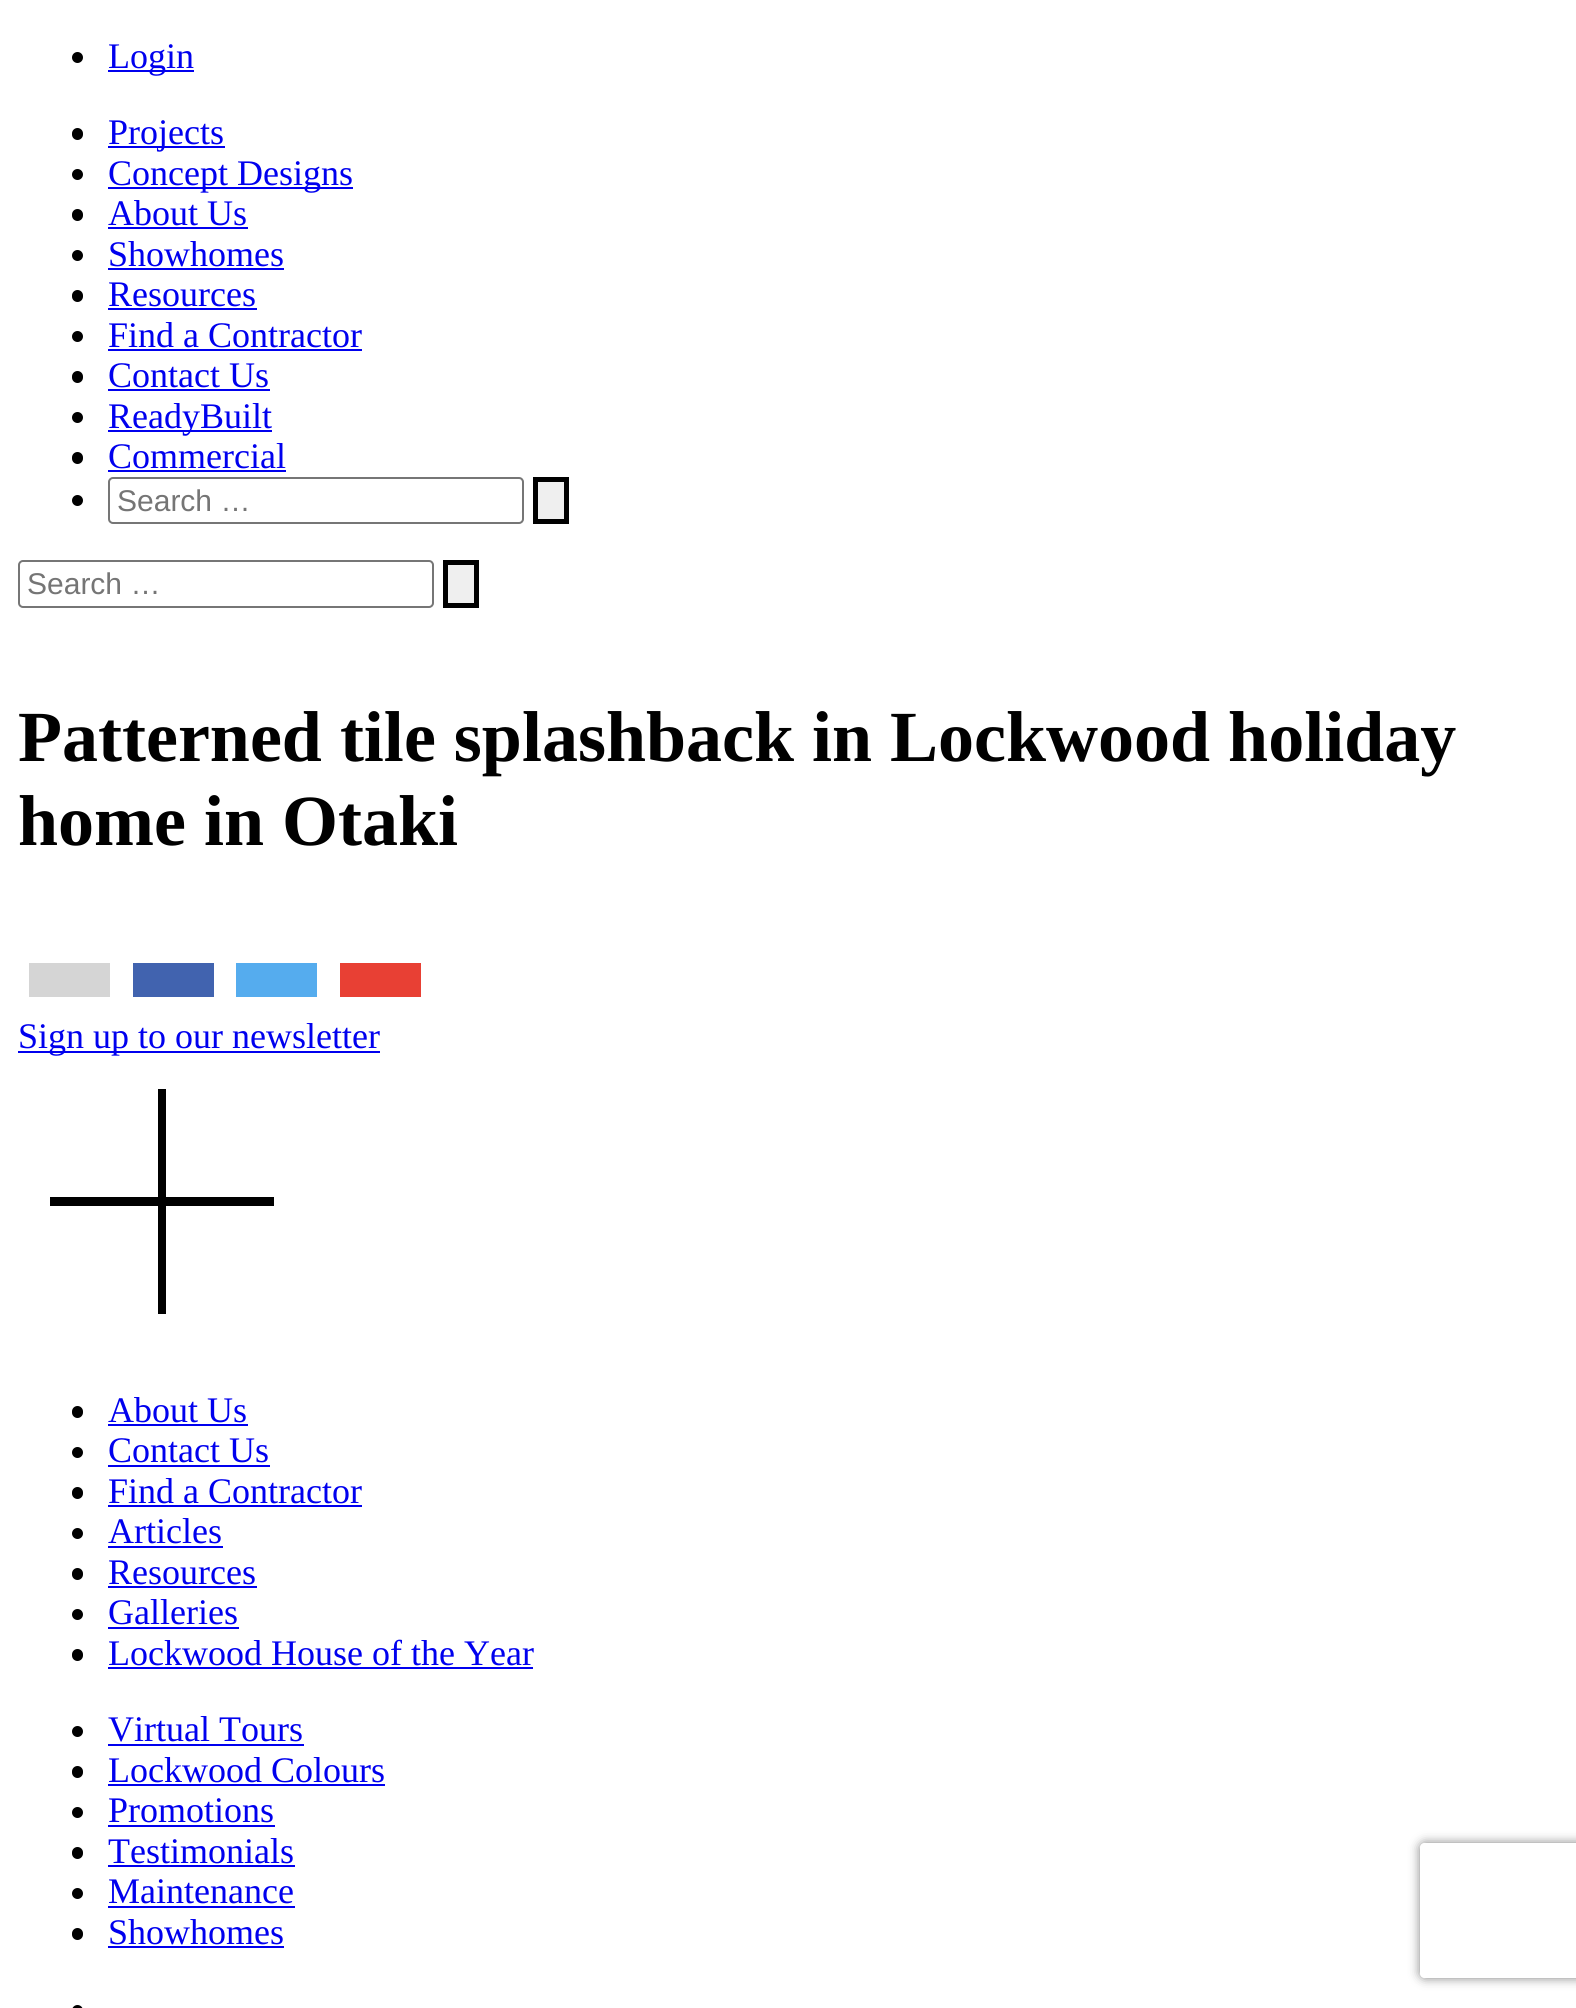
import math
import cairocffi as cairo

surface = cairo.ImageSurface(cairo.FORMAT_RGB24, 1576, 2008)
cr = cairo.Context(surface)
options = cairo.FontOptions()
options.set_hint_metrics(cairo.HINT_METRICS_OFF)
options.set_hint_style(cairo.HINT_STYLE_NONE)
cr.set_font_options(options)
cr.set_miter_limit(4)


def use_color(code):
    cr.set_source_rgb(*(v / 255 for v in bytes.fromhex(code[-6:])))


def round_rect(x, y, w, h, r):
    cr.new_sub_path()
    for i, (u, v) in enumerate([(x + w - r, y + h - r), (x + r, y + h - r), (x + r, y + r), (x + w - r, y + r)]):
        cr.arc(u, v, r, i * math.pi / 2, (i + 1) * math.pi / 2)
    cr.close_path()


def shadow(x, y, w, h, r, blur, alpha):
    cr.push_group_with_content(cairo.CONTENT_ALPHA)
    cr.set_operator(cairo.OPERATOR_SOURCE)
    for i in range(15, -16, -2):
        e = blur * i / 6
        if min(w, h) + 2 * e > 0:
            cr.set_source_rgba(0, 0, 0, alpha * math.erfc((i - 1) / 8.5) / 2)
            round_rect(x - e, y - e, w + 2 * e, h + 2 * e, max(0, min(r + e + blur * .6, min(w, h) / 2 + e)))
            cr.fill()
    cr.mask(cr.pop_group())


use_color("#ffffff")
cr.paint()
use_color("#000000")
cr.arc(77.5, 57.5, 5.5, 0, 2 * math.pi)
cr.fill()
use_color("#0000ee")
cr.rectangle(108, 70, 86, 2)
cr.fill()
cr.select_font_face("Liberation Serif")
cr.set_font_size(36)
cr.move_to(108, 68)
cr.show_text("Login")
use_color("#000000")
round_rect(72, 128, 11, 12, 5.5)
cr.fill()
use_color("#0000ee")
cr.rectangle(108, 146, 117, 2)
cr.fill()
cr.move_to(108, 144)
cr.show_text("Projects")
use_color("#000000")
cr.new_path()
cr.arc(77.5, 174.5, 5.5, 0, 2 * math.pi)
cr.fill()
use_color("#0000ee")
cr.rectangle(108, 187, 245, 2)
cr.fill()
cr.move_to(108, 185)
cr.show_text("Concept Designs")
use_color("#000000")
round_rect(72, 209, 11, 12, 5.5)
cr.fill()
use_color("#0000ee")
cr.move_to(108, 225)
cr.show_text("About Us")
cr.rectangle(108, 227, 140, 2)
cr.fill()
use_color("#000000")
cr.arc(77.5, 255.5, 5.5, 0, 2 * math.pi)
cr.fill()
use_color("#0000ee")
cr.move_to(108, 266)
cr.show_text("Showhomes")
cr.rectangle(108, 268, 176, 2)
cr.fill()
use_color("#000000")
round_rect(72, 290, 11, 12, 5.5)
cr.fill()
use_color("#0000ee")
cr.move_to(108, 306)
cr.show_text("Resources")
cr.rectangle(108, 308, 149, 2)
cr.fill()
use_color("#000000")
cr.arc(77.5, 336.5, 5.5, 0, 2 * math.pi)
cr.fill()
use_color("#0000ee")
cr.move_to(108, 347)
cr.show_text("Find a Contractor")
cr.rectangle(108, 349, 254, 2)
cr.fill()
use_color("#000000")
round_rect(72, 371, 11, 12, 5.5)
cr.fill()
use_color("#0000ee")
cr.move_to(108, 387)
cr.show_text("Contact Us")
cr.rectangle(108, 389, 162, 2)
cr.fill()
use_color("#000000")
cr.arc(77.5, 417.5, 5.5, 0, 2 * math.pi)
cr.fill()
use_color("#0000ee")
cr.rectangle(108, 430, 164, 2)
cr.fill()
cr.move_to(108, 428)
cr.show_text("ReadyBuilt")
use_color("#000000")
round_rect(72, 452, 11, 12, 5.5)
cr.fill()
use_color("#0000ee")
cr.move_to(108, 468)
cr.show_text("Commercial")
cr.rectangle(108, 470, 178, 2)
cr.fill()
use_color("#000000")
cr.arc(77.5, 500.5, 5.5, 0, 2 * math.pi)
cr.fill()
round_rect(109, 478, 414, 45, 4)
use_color("#767676")
cr.stroke()
cr.select_font_face("Liberation Sans")
cr.set_font_size(30)
use_color("#757575")
cr.move_to(117, 511)
cr.show_text("Search …")
use_color("#efefef")
cr.rectangle(535.5, 479.5, 31, 42)
cr.fill_preserve()
use_color("#000000")
cr.set_line_width(5)
cr.stroke()
round_rect(19, 561, 414, 46, 4)
use_color("#767676")
cr.set_line_width(2)
cr.stroke()
use_color("#757575")
cr.move_to(27, 594)
cr.show_text("Search …")
use_color("#efefef")
cr.rectangle(445.5, 562.5, 31, 43)
cr.fill_preserve()
use_color("#000000")
cr.set_line_width(5)
cr.stroke()
cr.select_font_face("Liberation Serif", cairo.FONT_SLANT_NORMAL, cairo.FONT_WEIGHT_BOLD)
cr.set_font_size(72)
cr.move_to(18, 761)
cr.show_text("Patterned tile splashback in Lockwood holiday")
cr.move_to(18, 845)
cr.show_text("home in Otaki")
use_color("#d5d5d5")
cr.rectangle(29, 963, 81, 34)
cr.fill()
use_color("#4163af")
cr.rectangle(133, 963, 81, 34)
cr.fill()
use_color("#55acee")
cr.rectangle(236, 963, 81, 34)
cr.fill()
use_color("#e84034")
cr.rectangle(340, 963, 81, 34)
cr.fill()
use_color("#0000ee")
cr.rectangle(18, 1051, 362, 2)
cr.fill()
cr.select_font_face("Liberation Serif")
cr.set_font_size(36)
cr.move_to(18, 1048)
cr.show_text("Sign up to our newsletter")
use_color("#000000")
cr.set_fill_rule(cairo.FILL_RULE_EVEN_ODD)
cr.new_path()
cr.move_to(50, 1197)
cr.line_to(158, 1197)
cr.line_to(158, 1089)
cr.line_to(166, 1089)
cr.line_to(166, 1197)
cr.line_to(274, 1197)
cr.line_to(274, 1206)
cr.line_to(166, 1206)
cr.line_to(166, 1314)
cr.line_to(158, 1314)
cr.line_to(158, 1206)
cr.line_to(50, 1206)
cr.close_path()
cr.fill()
round_rect(72, 1406, 11, 12, 5.5)
cr.fill()
use_color("#0000ee")
cr.move_to(108, 1422)
cr.show_text("About Us")
cr.rectangle(108, 1424, 140, 2)
cr.fill()
use_color("#000000")
cr.arc(77.5, 1452.5, 5.5, 0, 2 * math.pi)
cr.fill()
use_color("#0000ee")
cr.move_to(108, 1462)
cr.show_text("Contact Us")
cr.rectangle(108, 1465, 162, 2)
cr.fill()
use_color("#000000")
round_rect(72, 1487, 11, 12, 5.5)
cr.fill()
use_color("#0000ee")
cr.move_to(108, 1503)
cr.show_text("Find a Contractor")
cr.rectangle(108, 1505, 254, 2)
cr.fill()
use_color("#000000")
cr.arc(77.5, 1533.5, 5.5, 0, 2 * math.pi)
cr.fill()
use_color("#0000ee")
cr.move_to(108, 1543)
cr.show_text("Articles")
cr.rectangle(108, 1546, 115, 2)
cr.fill()
use_color("#000000")
round_rect(72, 1568, 11, 12, 5.5)
cr.fill()
use_color("#0000ee")
cr.move_to(108, 1584)
cr.show_text("Resources")
cr.rectangle(108, 1586, 149, 2)
cr.fill()
use_color("#000000")
cr.arc(77.5, 1614.5, 5.5, 0, 2 * math.pi)
cr.fill()
use_color("#0000ee")
cr.move_to(108, 1624)
cr.show_text("Galleries")
cr.rectangle(108, 1627, 131, 2)
cr.fill()
use_color("#000000")
round_rect(72, 1649, 11, 12, 5.5)
cr.fill()
use_color("#0000ee")
cr.move_to(108, 1665)
cr.show_text("Lockwood House of the Year")
cr.rectangle(108, 1667, 425, 2)
cr.fill()
use_color("#000000")
cr.arc(77.5, 1731.5, 5.5, 0, 2 * math.pi)
cr.fill()
use_color("#0000ee")
cr.move_to(108, 1741)
cr.show_text("Virtual Tours")
cr.rectangle(108, 1744, 196, 2)
cr.fill()
use_color("#000000")
round_rect(72, 1766, 11, 12, 5.5)
cr.fill()
use_color("#0000ee")
cr.move_to(108, 1782)
cr.show_text("Lockwood Colours")
cr.rectangle(108, 1784, 277, 2)
cr.fill()
use_color("#000000")
cr.arc(77.5, 1812.5, 5.5, 0, 2 * math.pi)
cr.fill()
use_color("#0000ee")
cr.move_to(108, 1822)
cr.show_text("Promotions")
cr.rectangle(108, 1825, 167, 2)
cr.fill()
use_color("#000000")
round_rect(72, 1847, 11, 12, 5.5)
cr.fill()
use_color("#0000ee")
cr.move_to(108, 1863)
cr.show_text("Testimonials")
cr.rectangle(108, 1865, 187, 2)
cr.fill()
use_color("#000000")
cr.arc(77.5, 1893.5, 5.5, 0, 2 * math.pi)
cr.fill()
use_color("#0000ee")
cr.move_to(108, 1903)
cr.show_text("Maintenance")
cr.rectangle(108, 1906, 187, 2)
cr.fill()
use_color("#000000")
round_rect(72, 1928, 11, 12, 5.5)
cr.fill()
use_color("#0000ee")
cr.move_to(108, 1944)
cr.show_text("Showhomes")
cr.rectangle(108, 1946, 176, 2)
cr.fill()
use_color("#000000")
round_rect(72, 2005, 11, 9, 5.5)
cr.fill()
cr.save()
cr.new_path()
cr.move_to(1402, 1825)
cr.line_to(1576, 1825)
cr.line_to(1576, 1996)
cr.line_to(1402, 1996)
cr.close_path()
cr.move_to(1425, 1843)
cr.line_to(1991, 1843)
cr.curve_to(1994, 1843, 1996, 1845, 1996, 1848)
cr.line_to(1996, 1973)
cr.curve_to(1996, 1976, 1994, 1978, 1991, 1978)
cr.line_to(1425, 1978)
cr.curve_to(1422, 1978, 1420, 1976, 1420, 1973)
cr.line_to(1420, 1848)
cr.curve_to(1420, 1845, 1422, 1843, 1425, 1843)
cr.close_path()
cr.clip()
use_color("#808080")
shadow(1420, 1843, 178, 135, 5, 5.5, 1)
cr.restore()
surface.write_to_png("result.png")
